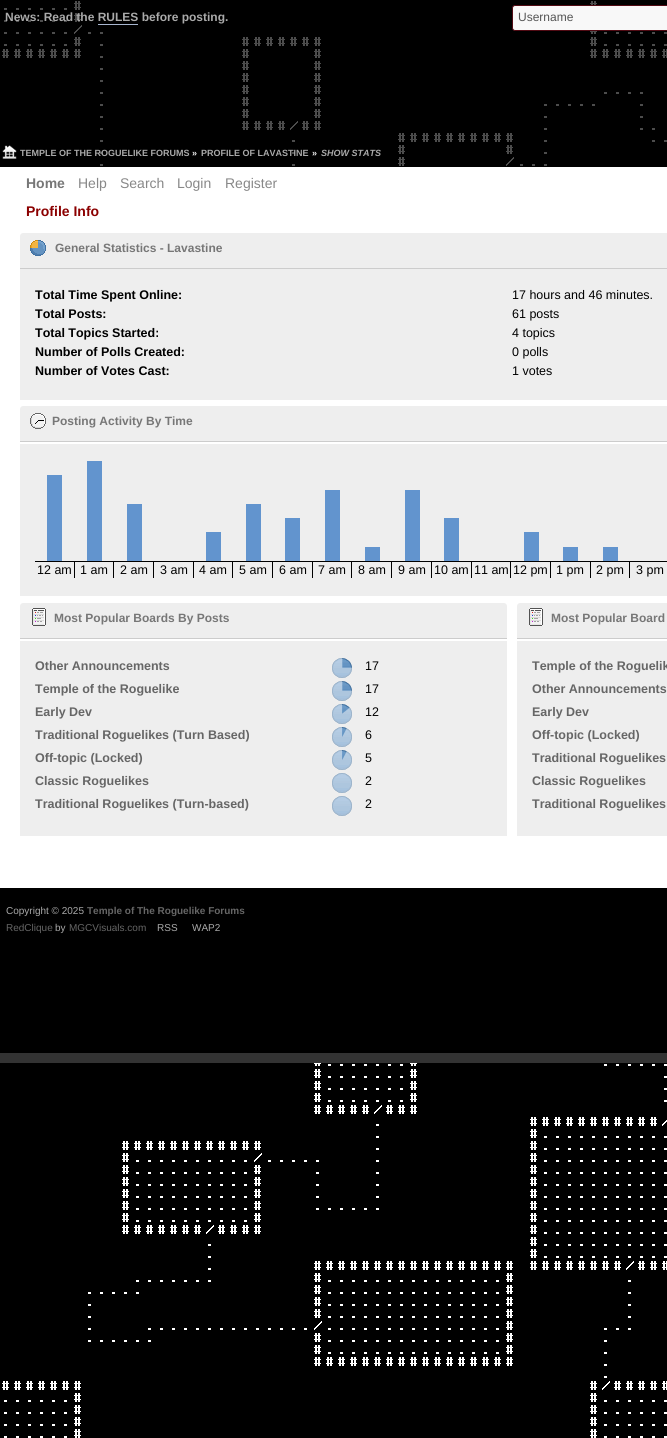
import math
import cairocffi as cairo

surface = cairo.ImageSurface(cairo.FORMAT_RGB24, 667, 1438)
cr = cairo.Context(surface)
options = cairo.FontOptions()
options.set_hint_metrics(cairo.HINT_METRICS_OFF)
options.set_hint_style(cairo.HINT_STYLE_NONE)
cr.set_font_options(options)
cr.set_miter_limit(4)


def use_color(code):
    cr.set_source_rgb(*(v / 255 for v in bytes.fromhex(code[-6:])))


def round_rect(x, y, w, h, r):
    cr.new_sub_path()
    for i, (u, v) in enumerate([(x + w - r, y + h - r), (x + r, y + h - r), (x + r, y + r), (x + w - r, y + r)]):
        cr.arc(u, v, r, i * math.pi / 2, (i + 1) * math.pi / 2)
    cr.close_path()


def picture(path, x, y, w, h):
    cr.save()
    cr.set_source_surface(cairo.ImageSurface.create_from_png(path), x, y)
    cr.rectangle(x, y, w, h)
    cr.fill()
    cr.restore()


use_color("#000000")
cr.paint()
picture("img1.png", 2, 1, 665, 1437)
cr.set_source_rgba(0, 0, 0, 0.7)
cr.rectangle(2, 1, 665, 165)
cr.fill()
cr.select_font_face("Liberation Sans", cairo.FONT_SLANT_NORMAL, cairo.FONT_WEIGHT_BOLD)
cr.set_font_size(12)
use_color("#aaaaaa")
cr.move_to(5, 21)
cr.show_text("News: Read the RULES before posting.")
use_color("#a8b6cf")
cr.rectangle(98, 24, 40, 1)
cr.fill()
use_color("#f8f8f8")
round_rect(512.5, 5.5, 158, 25, 2.5)
cr.fill_preserve()
use_color("#510a13")
cr.set_line_width(1)
cr.stroke()
cr.select_font_face("Liberation Sans")
use_color("#555555")
cr.move_to(518, 21)
cr.show_text("Username")
picture("img2.png", 2, 145, 15, 14)
cr.select_font_face("Liberation Sans", cairo.FONT_SLANT_NORMAL, cairo.FONT_WEIGHT_BOLD)
cr.set_font_size(9)
use_color("#aaaaaa")
cr.move_to(20, 156)
cr.show_text("TEMPLE OF THE ROGUELIKE FORUMS")
use_color("#eeeeee")
cr.move_to(192, 156)
cr.show_text("»")
use_color("#aaaaaa")
cr.move_to(201, 156)
cr.show_text("PROFILE OF LAVASTINE")
use_color("#eeeeee")
cr.move_to(312, 156)
cr.show_text("»")
cr.select_font_face("Liberation Sans", cairo.FONT_SLANT_ITALIC, cairo.FONT_WEIGHT_BOLD)
use_color("#aaaaaa")
cr.move_to(321, 156)
cr.show_text("SHOW STATS")
use_color("#ffffff")
cr.rectangle(0, 167, 667, 721)
cr.fill()
cr.select_font_face("Liberation Sans", cairo.FONT_SLANT_NORMAL, cairo.FONT_WEIGHT_BOLD)
cr.set_font_size(14)
use_color("#777777")
cr.move_to(26, 188)
cr.show_text("Home")
cr.select_font_face("Liberation Sans")
use_color("#888888")
cr.move_to(78, 188)
cr.show_text("Help")
cr.move_to(120, 188)
cr.show_text("Search")
cr.move_to(177, 188)
cr.show_text("Login")
cr.move_to(225, 188)
cr.show_text("Register")
cr.select_font_face("Liberation Sans", cairo.FONT_SLANT_NORMAL, cairo.FONT_WEIGHT_BOLD)
use_color("#8b0000")
cr.move_to(26, 216)
cr.show_text("Profile Info")
use_color("#eeeeee")
cr.new_path()
cr.move_to(23, 233)
cr.line_to(667, 233)
cr.curve_to(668.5, 233, 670, 234.5, 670, 236)
cr.line_to(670, 269)
cr.line_to(20, 269)
cr.line_to(20, 236)
cr.curve_to(20, 234.5, 21.5, 233, 23, 233)
cr.close_path()
cr.fill()
use_color("#cccccc")
cr.rectangle(20, 268, 647, 1)
cr.fill()
picture("img3.png", 30, 240, 16, 16)
cr.set_font_size(12)
use_color("#777777")
cr.move_to(55, 252)
cr.show_text("General Statistics - Lavastine")
use_color("#eeeeee")
cr.rectangle(20, 269, 647, 131)
cr.fill()
cr.set_font_size(12.5)
use_color("#000000")
cr.move_to(35, 299)
cr.show_text("Total Time Spent Online:")
cr.select_font_face("Liberation Sans")
cr.move_to(512, 299)
cr.show_text("17 hours and 46 minutes.")
cr.select_font_face("Liberation Sans", cairo.FONT_SLANT_NORMAL, cairo.FONT_WEIGHT_BOLD)
cr.move_to(35, 318)
cr.show_text("Total Posts:")
cr.select_font_face("Liberation Sans")
cr.move_to(512, 318)
cr.show_text("61 posts")
cr.select_font_face("Liberation Sans", cairo.FONT_SLANT_NORMAL, cairo.FONT_WEIGHT_BOLD)
cr.move_to(35, 337)
cr.show_text("Total Topics Started:")
cr.select_font_face("Liberation Sans")
cr.move_to(512, 337)
cr.show_text("4 topics")
cr.select_font_face("Liberation Sans", cairo.FONT_SLANT_NORMAL, cairo.FONT_WEIGHT_BOLD)
cr.move_to(35, 356)
cr.show_text("Number of Polls Created:")
cr.select_font_face("Liberation Sans")
cr.move_to(512, 356)
cr.show_text("0 polls")
cr.select_font_face("Liberation Sans", cairo.FONT_SLANT_NORMAL, cairo.FONT_WEIGHT_BOLD)
cr.move_to(35, 375)
cr.show_text("Number of Votes Cast:")
cr.select_font_face("Liberation Sans")
cr.move_to(512, 375)
cr.show_text("1 votes")
use_color("#eeeeee")
cr.new_path()
cr.move_to(23, 406)
cr.line_to(667, 406)
cr.curve_to(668.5, 406, 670, 407.5, 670, 409)
cr.line_to(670, 442)
cr.line_to(20, 442)
cr.line_to(20, 409)
cr.curve_to(20, 407.5, 21.5, 406, 23, 406)
cr.close_path()
cr.fill()
use_color("#cccccc")
cr.rectangle(20, 441, 647, 1)
cr.fill()
picture("img4.png", 30, 413, 16, 16)
cr.select_font_face("Liberation Sans", cairo.FONT_SLANT_NORMAL, cairo.FONT_WEIGHT_BOLD)
cr.set_font_size(12)
use_color("#777777")
cr.move_to(52, 425)
cr.show_text("Posting Activity By Time")
use_color("#eeeeee")
cr.rectangle(20, 444, 647, 152)
cr.fill()
use_color("#6294ce")
cr.rectangle(47, 475, 15, 86)
cr.fill()
use_color("#000000")
cr.rectangle(35, 561, 632, 1)
cr.fill()
cr.rectangle(74, 561, 1, 17)
cr.fill()
cr.select_font_face("Liberation Sans")
cr.set_font_size(12.5)
cr.move_to(37, 574)
cr.show_text("12 am")
use_color("#6294ce")
cr.rectangle(87, 461, 15, 100)
cr.fill()
use_color("#000000")
cr.rectangle(113, 561, 1, 17)
cr.fill()
cr.move_to(80, 574)
cr.show_text("1 am")
use_color("#6294ce")
cr.rectangle(127, 504, 15, 57)
cr.fill()
use_color("#000000")
cr.rectangle(153, 561, 1, 17)
cr.fill()
cr.move_to(120, 574)
cr.show_text("2 am")
cr.rectangle(193, 561, 1, 17)
cr.fill()
cr.move_to(160, 574)
cr.show_text("3 am")
use_color("#6294ce")
cr.rectangle(206, 532, 15, 29)
cr.fill()
use_color("#000000")
cr.rectangle(232, 561, 1, 17)
cr.fill()
cr.move_to(199, 574)
cr.show_text("4 am")
use_color("#6294ce")
cr.rectangle(246, 504, 15, 57)
cr.fill()
use_color("#000000")
cr.rectangle(272, 561, 1, 17)
cr.fill()
cr.move_to(239, 574)
cr.show_text("5 am")
use_color("#6294ce")
cr.rectangle(285, 518, 15, 43)
cr.fill()
use_color("#000000")
cr.rectangle(312, 561, 1, 17)
cr.fill()
cr.move_to(279, 574)
cr.show_text("6 am")
use_color("#6294ce")
cr.rectangle(325, 490, 15, 71)
cr.fill()
use_color("#000000")
cr.rectangle(351, 561, 1, 17)
cr.fill()
cr.move_to(318, 574)
cr.show_text("7 am")
use_color("#6294ce")
cr.rectangle(365, 547, 15, 14)
cr.fill()
use_color("#000000")
cr.rectangle(391, 561, 1, 17)
cr.fill()
cr.move_to(358, 574)
cr.show_text("8 am")
use_color("#6294ce")
cr.rectangle(405, 490, 15, 71)
cr.fill()
use_color("#000000")
cr.rectangle(431, 561, 1, 17)
cr.fill()
cr.move_to(398, 574)
cr.show_text("9 am")
use_color("#6294ce")
cr.rectangle(444, 518, 15, 43)
cr.fill()
use_color("#000000")
cr.rectangle(471, 561, 1, 17)
cr.fill()
cr.move_to(434, 574)
cr.show_text("10 am")
cr.rectangle(510, 561, 1, 17)
cr.fill()
cr.move_to(474, 574)
cr.show_text("11 am")
use_color("#6294ce")
cr.rectangle(524, 532, 15, 29)
cr.fill()
use_color("#000000")
cr.rectangle(550, 561, 1, 17)
cr.fill()
cr.move_to(513, 574)
cr.show_text("12 pm")
use_color("#6294ce")
cr.rectangle(563, 547, 15, 14)
cr.fill()
use_color("#000000")
cr.rectangle(590, 561, 1, 17)
cr.fill()
cr.move_to(556, 574)
cr.show_text("1 pm")
use_color("#6294ce")
cr.rectangle(603, 547, 15, 14)
cr.fill()
use_color("#000000")
cr.rectangle(629, 561, 1, 17)
cr.fill()
cr.move_to(596, 574)
cr.show_text("2 pm")
cr.move_to(636, 574)
cr.show_text("3 pm")
use_color("#eeeeee")
cr.new_path()
cr.move_to(23, 603)
cr.line_to(504, 603)
cr.curve_to(505.5, 603, 507, 604.5, 507, 606)
cr.line_to(507, 639)
cr.line_to(20, 639)
cr.line_to(20, 606)
cr.curve_to(20, 604.5, 21.5, 603, 23, 603)
cr.close_path()
cr.fill()
use_color("#cccccc")
cr.rectangle(20, 638, 487, 1)
cr.fill()
picture("img5.png", 32, 608, 14, 18)
cr.select_font_face("Liberation Sans", cairo.FONT_SLANT_NORMAL, cairo.FONT_WEIGHT_BOLD)
cr.set_font_size(12)
use_color("#777777")
cr.move_to(54, 622)
cr.show_text("Most Popular Boards By Posts")
use_color("#eeeeee")
cr.rectangle(20, 641, 487, 195)
cr.fill()
cr.set_font_size(12.5)
use_color("#666666")
cr.move_to(35, 670)
cr.show_text("Other Announcements")
picture("img6.png", 332, 658, 20, 20)
cr.select_font_face("Liberation Sans")
use_color("#000000")
cr.move_to(365, 670)
cr.show_text("17")
cr.select_font_face("Liberation Sans", cairo.FONT_SLANT_NORMAL, cairo.FONT_WEIGHT_BOLD)
use_color("#666666")
cr.move_to(35, 693)
cr.show_text("Temple of the Roguelike")
picture("img6.png", 332, 681, 20, 20)
cr.select_font_face("Liberation Sans")
use_color("#000000")
cr.move_to(365, 693)
cr.show_text("17")
cr.select_font_face("Liberation Sans", cairo.FONT_SLANT_NORMAL, cairo.FONT_WEIGHT_BOLD)
use_color("#666666")
cr.move_to(35, 716)
cr.show_text("Early Dev")
picture("img7.png", 332, 704, 20, 20)
cr.select_font_face("Liberation Sans")
use_color("#000000")
cr.move_to(365, 716)
cr.show_text("12")
cr.select_font_face("Liberation Sans", cairo.FONT_SLANT_NORMAL, cairo.FONT_WEIGHT_BOLD)
use_color("#666666")
cr.move_to(35, 739)
cr.show_text("Traditional Roguelikes (Turn Based)")
picture("img8.png", 332, 727, 20, 20)
cr.select_font_face("Liberation Sans")
use_color("#000000")
cr.move_to(365, 739)
cr.show_text("6")
cr.select_font_face("Liberation Sans", cairo.FONT_SLANT_NORMAL, cairo.FONT_WEIGHT_BOLD)
use_color("#666666")
cr.move_to(35, 762)
cr.show_text("Off-topic (Locked)")
picture("img8.png", 332, 750, 20, 20)
cr.select_font_face("Liberation Sans")
use_color("#000000")
cr.move_to(365, 762)
cr.show_text("5")
cr.select_font_face("Liberation Sans", cairo.FONT_SLANT_NORMAL, cairo.FONT_WEIGHT_BOLD)
use_color("#666666")
cr.move_to(35, 785)
cr.show_text("Classic Roguelikes")
picture("img9.png", 332, 773, 20, 20)
cr.select_font_face("Liberation Sans")
use_color("#000000")
cr.move_to(365, 785)
cr.show_text("2")
cr.select_font_face("Liberation Sans", cairo.FONT_SLANT_NORMAL, cairo.FONT_WEIGHT_BOLD)
use_color("#666666")
cr.move_to(35, 808)
cr.show_text("Traditional Roguelikes (Turn-based)")
picture("img9.png", 332, 796, 20, 20)
cr.select_font_face("Liberation Sans")
use_color("#000000")
cr.move_to(365, 808)
cr.show_text("2")
use_color("#eeeeee")
cr.new_path()
cr.move_to(520, 603)
cr.line_to(667, 603)
cr.curve_to(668.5, 603, 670, 604.5, 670, 606)
cr.line_to(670, 639)
cr.line_to(517, 639)
cr.line_to(517, 606)
cr.curve_to(517, 604.5, 518.5, 603, 520, 603)
cr.close_path()
cr.fill()
use_color("#cccccc")
cr.rectangle(517, 638, 150, 1)
cr.fill()
picture("img5.png", 529, 608, 14, 18)
cr.select_font_face("Liberation Sans", cairo.FONT_SLANT_NORMAL, cairo.FONT_WEIGHT_BOLD)
cr.set_font_size(12)
use_color("#777777")
cr.move_to(551, 622)
cr.show_text("Most Popular Board")
use_color("#eeeeee")
cr.rectangle(517, 641, 150, 195)
cr.fill()
cr.set_font_size(12.5)
use_color("#666666")
cr.move_to(532, 670)
cr.show_text("Temple of the Roguelik")
cr.move_to(532, 693)
cr.show_text("Other Announcements")
cr.move_to(532, 716)
cr.show_text("Early Dev")
cr.move_to(532, 739)
cr.show_text("Off-topic (Locked)")
cr.move_to(532, 762)
cr.show_text("Traditional Roguelikes")
cr.move_to(532, 785)
cr.show_text("Classic Roguelikes")
cr.move_to(532, 808)
cr.show_text("Traditional Roguelikes")
use_color("#000000")
cr.rectangle(28, 889, 639, 164)
cr.fill()
cr.select_font_face("Liberation Sans")
cr.set_font_size(10)
use_color("#aaaaaa")
cr.move_to(6, 914)
cr.show_text("Copyright © 2025")
cr.select_font_face("Liberation Sans", cairo.FONT_SLANT_NORMAL, cairo.FONT_WEIGHT_BOLD)
use_color("#666666")
cr.move_to(87, 914)
cr.show_text("Temple of The Roguelike Forums")
cr.select_font_face("Liberation Sans")
cr.move_to(6, 931)
cr.show_text("RedClique")
use_color("#aaaaaa")
cr.move_to(55, 931)
cr.show_text("by")
use_color("#666666")
cr.move_to(69, 931)
cr.show_text("MGCVisuals.com")
use_color("#aaaaaa")
cr.move_to(157, 931)
cr.show_text("RSS")
cr.move_to(192, 931)
cr.show_text("WAP2")
use_color("#333333")
cr.rectangle(0, 1053, 667, 10)
cr.fill()
surface.write_to_png("result.png")
